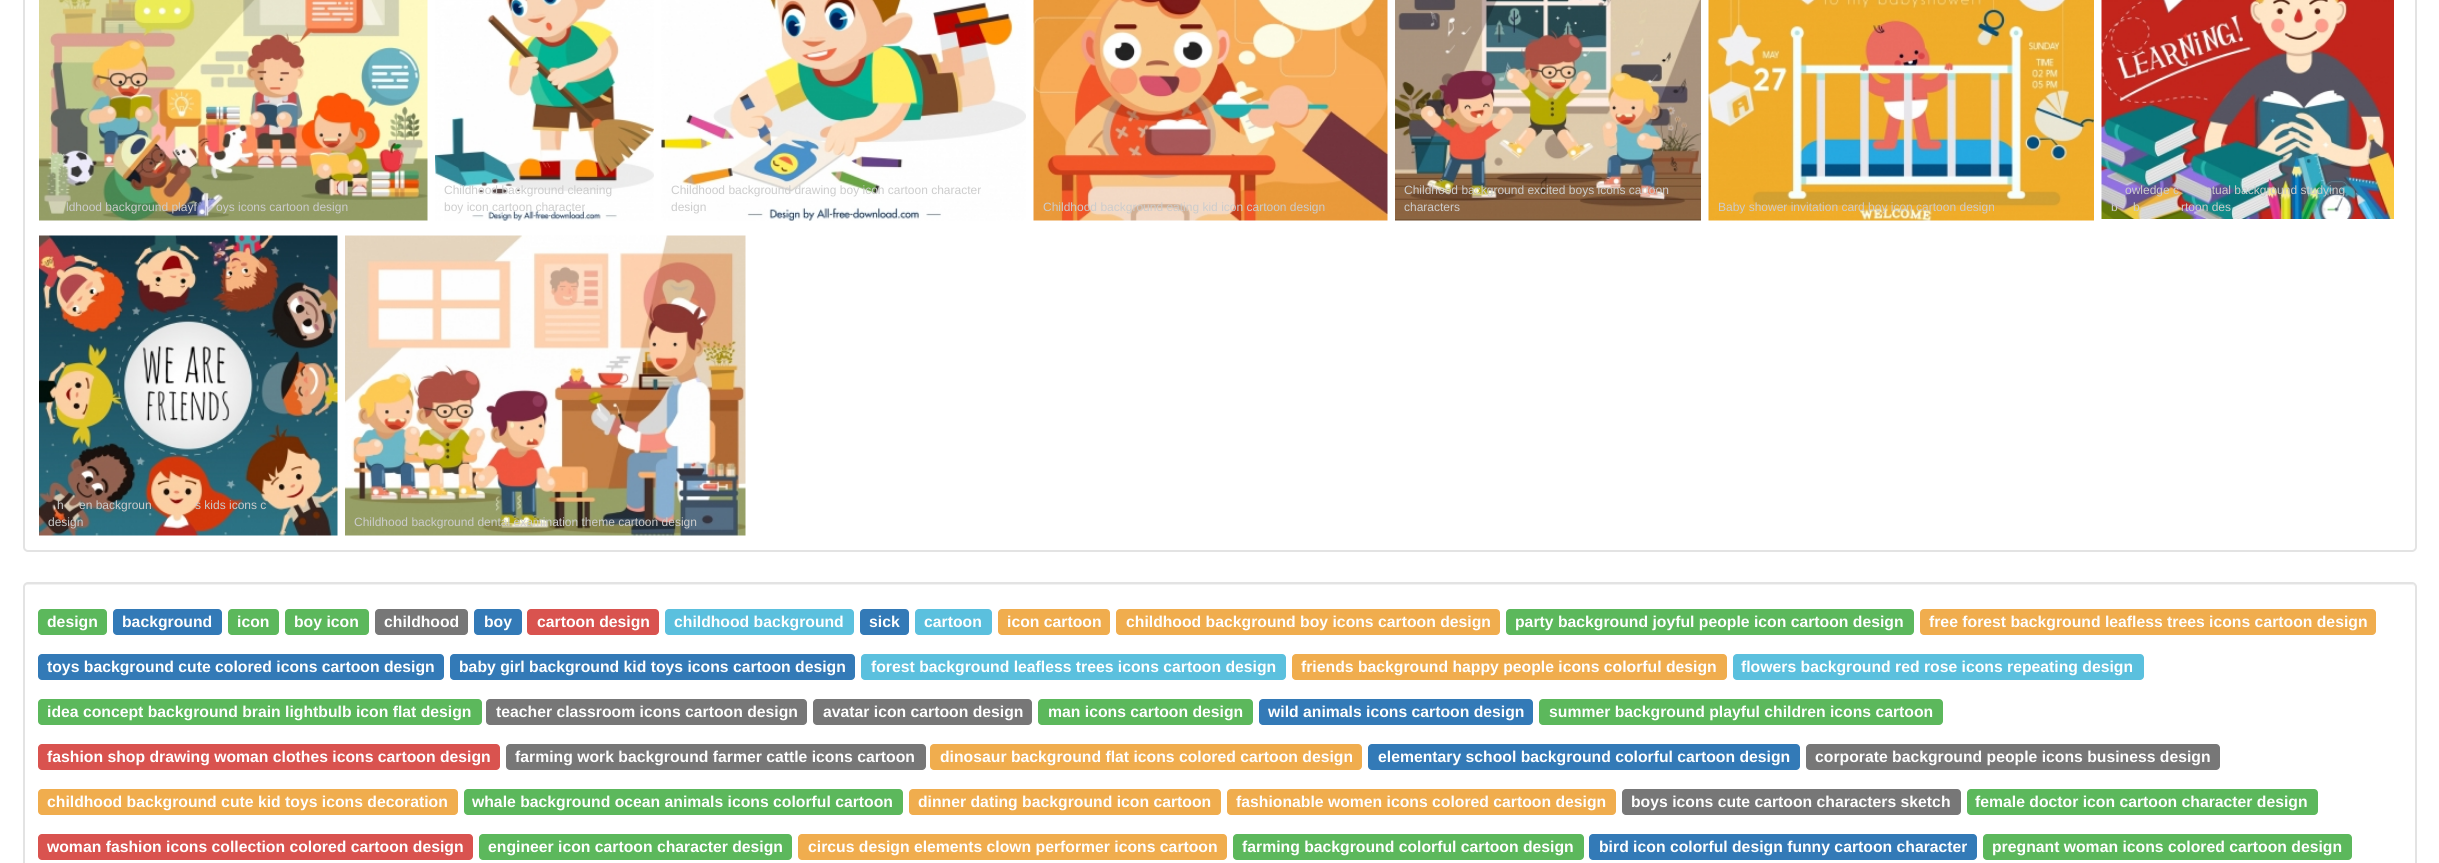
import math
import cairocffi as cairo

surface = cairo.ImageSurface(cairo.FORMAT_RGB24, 2439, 863)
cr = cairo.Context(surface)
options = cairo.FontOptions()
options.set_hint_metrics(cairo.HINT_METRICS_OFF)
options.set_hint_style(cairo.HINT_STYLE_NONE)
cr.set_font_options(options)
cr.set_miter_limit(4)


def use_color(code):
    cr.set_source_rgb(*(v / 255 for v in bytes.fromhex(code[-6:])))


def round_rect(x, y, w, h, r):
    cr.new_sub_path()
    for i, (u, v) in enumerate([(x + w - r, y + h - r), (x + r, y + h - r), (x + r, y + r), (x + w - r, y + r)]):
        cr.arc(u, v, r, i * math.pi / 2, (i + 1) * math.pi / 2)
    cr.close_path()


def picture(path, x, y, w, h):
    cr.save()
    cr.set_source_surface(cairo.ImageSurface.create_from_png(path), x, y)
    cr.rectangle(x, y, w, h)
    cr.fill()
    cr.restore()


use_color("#ffffff")
cr.paint()
round_rect(24, -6, 2392, 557, 4)
use_color("#e3e3e3")
cr.stroke()
picture("img1.png", 39, 0, 389, 221)
cr.select_font_face("Liberation Sans")
cr.set_font_size(12)
use_color("#cccccc")
cr.move_to(66, 211)
cr.show_text("ldhood background playf")
cr.move_to(216, 211)
cr.show_text("oys icons cartoon design")
picture("img2.png", 435, 0, 219, 221)
cr.move_to(444, 194)
cr.show_text("Childhood background cleaning")
cr.move_to(444, 211)
cr.show_text("boy icon cartoon character")
picture("img3.png", 661, 0, 365, 221)
cr.move_to(671, 194)
cr.show_text("Childhood background drawing boy icon cartoon character")
cr.move_to(671, 211)
cr.show_text("design")
picture("img4.png", 1033, 0, 355, 221)
cr.move_to(1043, 211)
cr.show_text("Childhood background eating kid icon cartoon design")
picture("img5.png", 1395, 0, 306, 221)
cr.move_to(1404, 194)
cr.show_text("Childhood background excited boys icons cartoon")
cr.move_to(1404, 211)
cr.show_text("characters")
picture("img6.png", 1708, 0, 386, 221)
cr.move_to(1718, 211)
cr.show_text("Baby shower invitation card boy icon cartoon design")
picture("img7.png", 2101, 0, 293, 219)
cr.move_to(2125, 194)
cr.show_text("owledge c")
cr.move_to(2205, 194)
cr.show_text("ptual background studying")
cr.move_to(2111, 211)
cr.show_text("b")
cr.move_to(2133, 211)
cr.show_text("b")
cr.move_to(2181, 211)
cr.show_text("rtoon des")
picture("img8.png", 39, 235, 299, 301)
cr.move_to(57, 509)
cr.show_text("h")
cr.move_to(79, 509)
cr.show_text("en backgroun")
cr.move_to(195, 509)
cr.show_text("s kids icons c")
cr.move_to(48, 526)
cr.show_text("design")
picture("img9.png", 345, 235, 401, 301)
cr.move_to(354, 526)
cr.show_text("Childhood background dental examination theme cartoon design")
use_color("#f2f2f2")
cr.new_path()
cr.move_to(27, 585)
cr.line_to(2412, 585)
cr.curve_to(2414, 585, 2415, 586, 2415, 588)
cr.curve_to(2415, 586, 2414, 584, 2412, 584)
cr.line_to(27, 584)
cr.curve_to(25, 584, 24, 586, 24, 588)
cr.curve_to(24, 586, 25, 585, 27, 585)
cr.close_path()
cr.fill()
round_rect(24, 583, 2392, 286, 4)
use_color("#e3e3e3")
cr.stroke()
use_color("#5cb85c")
round_rect(38, 609, 69, 26, 4)
cr.fill()
cr.select_font_face("Liberation Sans", cairo.FONT_SLANT_NORMAL, cairo.FONT_WEIGHT_BOLD)
cr.set_font_size(15.75)
use_color("#ffffff")
cr.move_to(47, 627)
cr.show_text("design")
use_color("#337ab7")
round_rect(113, 609, 109, 26, 4)
cr.fill()
use_color("#ffffff")
cr.move_to(122, 627)
cr.show_text("background")
use_color("#5cb85c")
round_rect(228, 609, 51, 26, 4)
cr.fill()
use_color("#ffffff")
cr.move_to(237, 627)
cr.show_text("icon")
use_color("#5cb85c")
round_rect(285, 609, 84, 26, 4)
cr.fill()
use_color("#ffffff")
cr.move_to(294, 627)
cr.show_text("boy icon")
use_color("#777777")
round_rect(375, 609, 93, 26, 4)
cr.fill()
use_color("#ffffff")
cr.move_to(384, 627)
cr.show_text("childhood")
use_color("#337ab7")
round_rect(474, 609, 48, 26, 4)
cr.fill()
use_color("#ffffff")
cr.move_to(484, 627)
cr.show_text("boy")
use_color("#d9534f")
round_rect(527, 609, 132, 26, 4)
cr.fill()
use_color("#ffffff")
cr.move_to(537, 627)
cr.show_text("cartoon design")
use_color("#5bc0de")
round_rect(665, 609, 189, 26, 4)
cr.fill()
use_color("#ffffff")
cr.move_to(674, 627)
cr.show_text("childhood background")
use_color("#337ab7")
round_rect(860, 609, 49, 26, 4)
cr.fill()
use_color("#ffffff")
cr.move_to(869, 627)
cr.show_text("sick")
use_color("#5bc0de")
round_rect(915, 609, 77, 26, 4)
cr.fill()
use_color("#ffffff")
cr.move_to(924, 627)
cr.show_text("cartoon")
use_color("#f0ad4e")
round_rect(998, 609, 112, 26, 4)
cr.fill()
use_color("#ffffff")
cr.move_to(1007, 627)
cr.show_text("icon cartoon")
use_color("#f0ad4e")
round_rect(1116, 609, 384, 26, 4)
cr.fill()
use_color("#ffffff")
cr.move_to(1126, 627)
cr.show_text("childhood background boy icons cartoon design")
use_color("#5cb85c")
round_rect(1506, 609, 408, 26, 4)
cr.fill()
use_color("#ffffff")
cr.move_to(1515, 627)
cr.show_text("party background joyful people icon cartoon design")
use_color("#f0ad4e")
round_rect(1920, 609, 456, 26, 4)
cr.fill()
use_color("#ffffff")
cr.move_to(1929, 627)
cr.show_text("free forest background leafless trees icons cartoon design")
use_color("#337ab7")
round_rect(38, 654, 406, 26, 4)
cr.fill()
use_color("#ffffff")
cr.move_to(47, 672)
cr.show_text("toys background cute colored icons cartoon design")
use_color("#337ab7")
round_rect(450, 654, 405, 26, 4)
cr.fill()
use_color("#ffffff")
cr.move_to(459, 672)
cr.show_text("baby girl background kid toys icons cartoon design")
use_color("#5bc0de")
round_rect(861, 654, 425, 26, 4)
cr.fill()
use_color("#ffffff")
cr.move_to(871, 672)
cr.show_text("forest background leafless trees icons cartoon design")
use_color("#f0ad4e")
round_rect(1292, 654, 435, 26, 4)
cr.fill()
use_color("#ffffff")
cr.move_to(1301, 672)
cr.show_text("friends background happy people icons colorful design")
use_color("#5bc0de")
round_rect(1733, 654, 411, 26, 4)
cr.fill()
use_color("#ffffff")
cr.move_to(1741, 672)
cr.show_text("flowers background red rose icons repeating design")
use_color("#5cb85c")
round_rect(38, 699, 444, 26, 4)
cr.fill()
use_color("#ffffff")
cr.move_to(47, 717)
cr.show_text("idea concept background brain lightbulb icon flat design")
use_color("#777777")
round_rect(486, 699, 321, 26, 4)
cr.fill()
use_color("#ffffff")
cr.move_to(496, 717)
cr.show_text("teacher classroom icons cartoon design")
use_color("#777777")
round_rect(813, 699, 219, 26, 4)
cr.fill()
use_color("#ffffff")
cr.move_to(823, 717)
cr.show_text("avatar icon cartoon design")
use_color("#5cb85c")
round_rect(1038, 699, 215, 26, 4)
cr.fill()
use_color("#ffffff")
cr.move_to(1048, 717)
cr.show_text("man icons cartoon design")
use_color("#337ab7")
round_rect(1259, 699, 274, 26, 4)
cr.fill()
use_color("#ffffff")
cr.move_to(1268, 717)
cr.show_text("wild animals icons cartoon design")
use_color("#5cb85c")
round_rect(1539, 699, 404, 26, 4)
cr.fill()
use_color("#ffffff")
cr.move_to(1549, 717)
cr.show_text("summer background playful children icons cartoon")
use_color("#d9534f")
round_rect(38, 744, 462, 26, 4)
cr.fill()
use_color("#ffffff")
cr.move_to(47, 762)
cr.show_text("fashion shop drawing woman clothes icons cartoon design")
use_color("#777777")
round_rect(506, 744, 420, 26, 4)
cr.fill()
use_color("#ffffff")
cr.move_to(515, 762)
cr.show_text("farming work background farmer cattle icons cartoon")
use_color("#f0ad4e")
round_rect(930, 744, 432, 26, 4)
cr.fill()
use_color("#ffffff")
cr.move_to(940, 762)
cr.show_text("dinosaur background flat icons colored cartoon design")
use_color("#337ab7")
round_rect(1368, 744, 432, 26, 4)
cr.fill()
use_color("#ffffff")
cr.move_to(1378, 762)
cr.show_text("elementary school background colorful cartoon design")
use_color("#777777")
round_rect(1806, 744, 414, 26, 4)
cr.fill()
use_color("#ffffff")
cr.move_to(1815, 762)
cr.show_text("corporate background people icons business design")
use_color("#f0ad4e")
round_rect(38, 789, 420, 26, 4)
cr.fill()
use_color("#ffffff")
cr.move_to(47, 807)
cr.show_text("childhood background cute kid toys icons decoration")
use_color("#5cb85c")
round_rect(464, 789, 439, 26, 4)
cr.fill()
use_color("#ffffff")
cr.move_to(472, 807)
cr.show_text("whale background ocean animals icons colorful cartoon")
use_color("#f0ad4e")
round_rect(909, 789, 312, 26, 4)
cr.fill()
use_color("#ffffff")
cr.move_to(918, 807)
cr.show_text("dinner dating background icon cartoon")
use_color("#f0ad4e")
round_rect(1227, 789, 389, 26, 4)
cr.fill()
use_color("#ffffff")
cr.move_to(1236, 807)
cr.show_text("fashionable women icons colored cartoon design")
use_color("#777777")
round_rect(1622, 789, 339, 26, 4)
cr.fill()
use_color("#ffffff")
cr.move_to(1631, 807)
cr.show_text("boys icons cute cartoon characters sketch")
use_color("#5cb85c")
round_rect(1967, 789, 351, 26, 4)
cr.fill()
use_color("#ffffff")
cr.move_to(1975, 807)
cr.show_text("female doctor icon cartoon character design")
use_color("#d9534f")
round_rect(38, 834, 435, 26, 4)
cr.fill()
use_color("#ffffff")
cr.move_to(47, 852)
cr.show_text("woman fashion icons collection colored cartoon design")
use_color("#5cb85c")
round_rect(479, 834, 313, 26, 4)
cr.fill()
use_color("#ffffff")
cr.move_to(488, 852)
cr.show_text("engineer icon cartoon character design")
use_color("#f0ad4e")
round_rect(798, 834, 429, 26, 4)
cr.fill()
use_color("#ffffff")
cr.move_to(808, 852)
cr.show_text("circus design elements clown performer icons cartoon")
use_color("#5cb85c")
round_rect(1233, 834, 351, 26, 4)
cr.fill()
use_color("#ffffff")
cr.move_to(1242, 852)
cr.show_text("farming background colorful cartoon design")
use_color("#337ab7")
round_rect(1589, 834, 388, 26, 4)
cr.fill()
use_color("#ffffff")
cr.move_to(1599, 852)
cr.show_text("bird icon colorful design funny cartoon character")
use_color("#5cb85c")
round_rect(1983, 834, 369, 26, 4)
cr.fill()
use_color("#ffffff")
cr.move_to(1992, 852)
cr.show_text("pregnant woman icons colored cartoon design")
surface.write_to_png("result.png")
